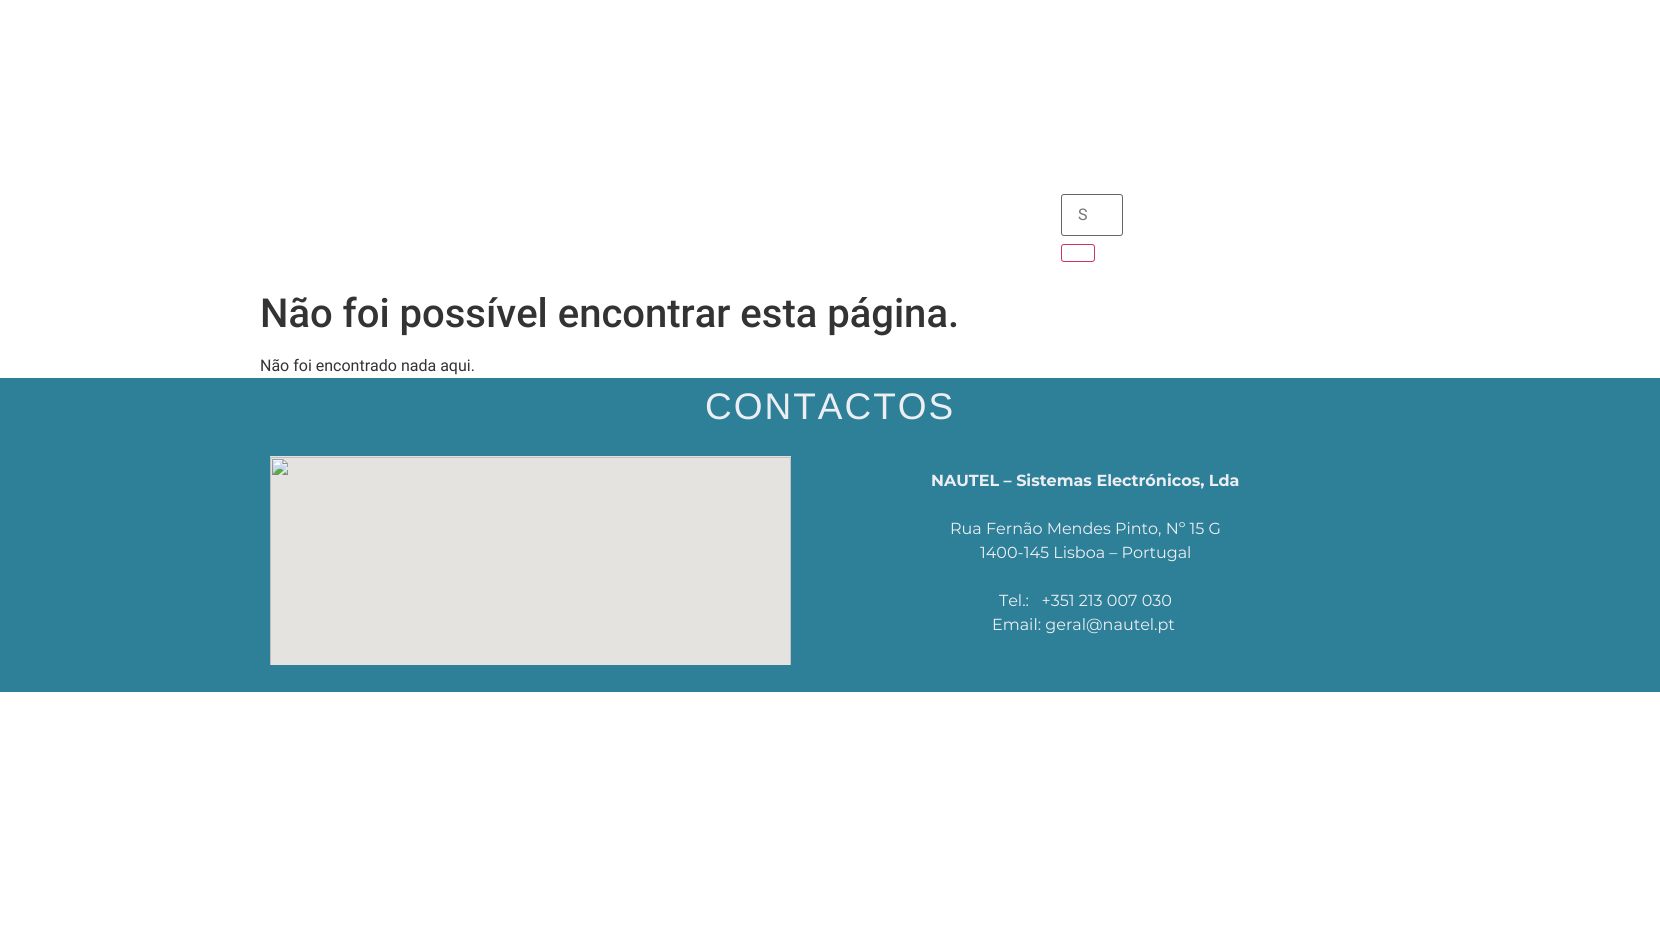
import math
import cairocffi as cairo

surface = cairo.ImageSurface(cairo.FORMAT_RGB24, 1660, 946)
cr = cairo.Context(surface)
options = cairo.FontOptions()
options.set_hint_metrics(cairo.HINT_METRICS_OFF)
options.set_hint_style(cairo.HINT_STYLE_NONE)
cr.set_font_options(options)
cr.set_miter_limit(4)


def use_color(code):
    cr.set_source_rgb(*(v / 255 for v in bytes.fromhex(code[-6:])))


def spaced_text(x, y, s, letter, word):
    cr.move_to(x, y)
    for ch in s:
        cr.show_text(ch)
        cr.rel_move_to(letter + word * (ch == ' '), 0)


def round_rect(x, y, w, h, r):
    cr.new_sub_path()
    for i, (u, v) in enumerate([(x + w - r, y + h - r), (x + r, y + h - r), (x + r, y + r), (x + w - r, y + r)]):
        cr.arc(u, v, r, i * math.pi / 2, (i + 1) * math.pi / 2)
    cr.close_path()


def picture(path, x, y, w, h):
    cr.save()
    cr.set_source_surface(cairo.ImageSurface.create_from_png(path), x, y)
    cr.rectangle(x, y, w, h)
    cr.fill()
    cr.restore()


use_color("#ffffff")
cr.paint()
round_rect(1061.5, 194.5, 61, 41, 2.5)
use_color("#666666")
cr.set_line_width(1)
cr.stroke()
cr.select_font_face("Roboto")
cr.set_font_size(16)
use_color("#757575")
cr.move_to(1078, 220)
cr.show_text("S")
round_rect(1061.5, 244.5, 33, 17, 2.5)
use_color("#cc3366")
cr.stroke()
cr.select_font_face("Roboto Medium")
cr.set_font_size(40)
use_color("#333333")
cr.move_to(260, 327)
cr.show_text("Não foi possível encontrar esta página.")
cr.select_font_face("Roboto")
cr.set_font_size(16)
cr.move_to(260, 371)
cr.show_text("Não foi encontrado nada aqui.")
use_color("#2d8098")
cr.rectangle(0, 378, 1660, 314)
cr.fill()
cr.select_font_face("Liberation Sans")
cr.set_font_size(37)
use_color("#eceef3")
spaced_text(705, 419, "CONTACTOS", 2, 0)
picture("img1.png", 270, 456, 521, 209)
cr.select_font_face("Montserrat", cairo.FONT_SLANT_NORMAL, cairo.FONT_WEIGHT_BOLD)
cr.set_font_size(16)
cr.move_to(931, 486)
cr.show_text("NAUTEL – Sistemas Electrónicos, Lda")
cr.select_font_face("Montserrat")
cr.move_to(950, 534)
cr.show_text("Rua Fernão Mendes Pinto, Nº 15 G")
cr.move_to(980, 558)
cr.show_text("1400-145 Lisboa – Portugal")
cr.move_to(999, 606)
cr.show_text("Tel.:   +351 213 007 030")
cr.move_to(992, 630)
cr.show_text("Email: geral@nautel.pt")
surface.write_to_png("result.png")
